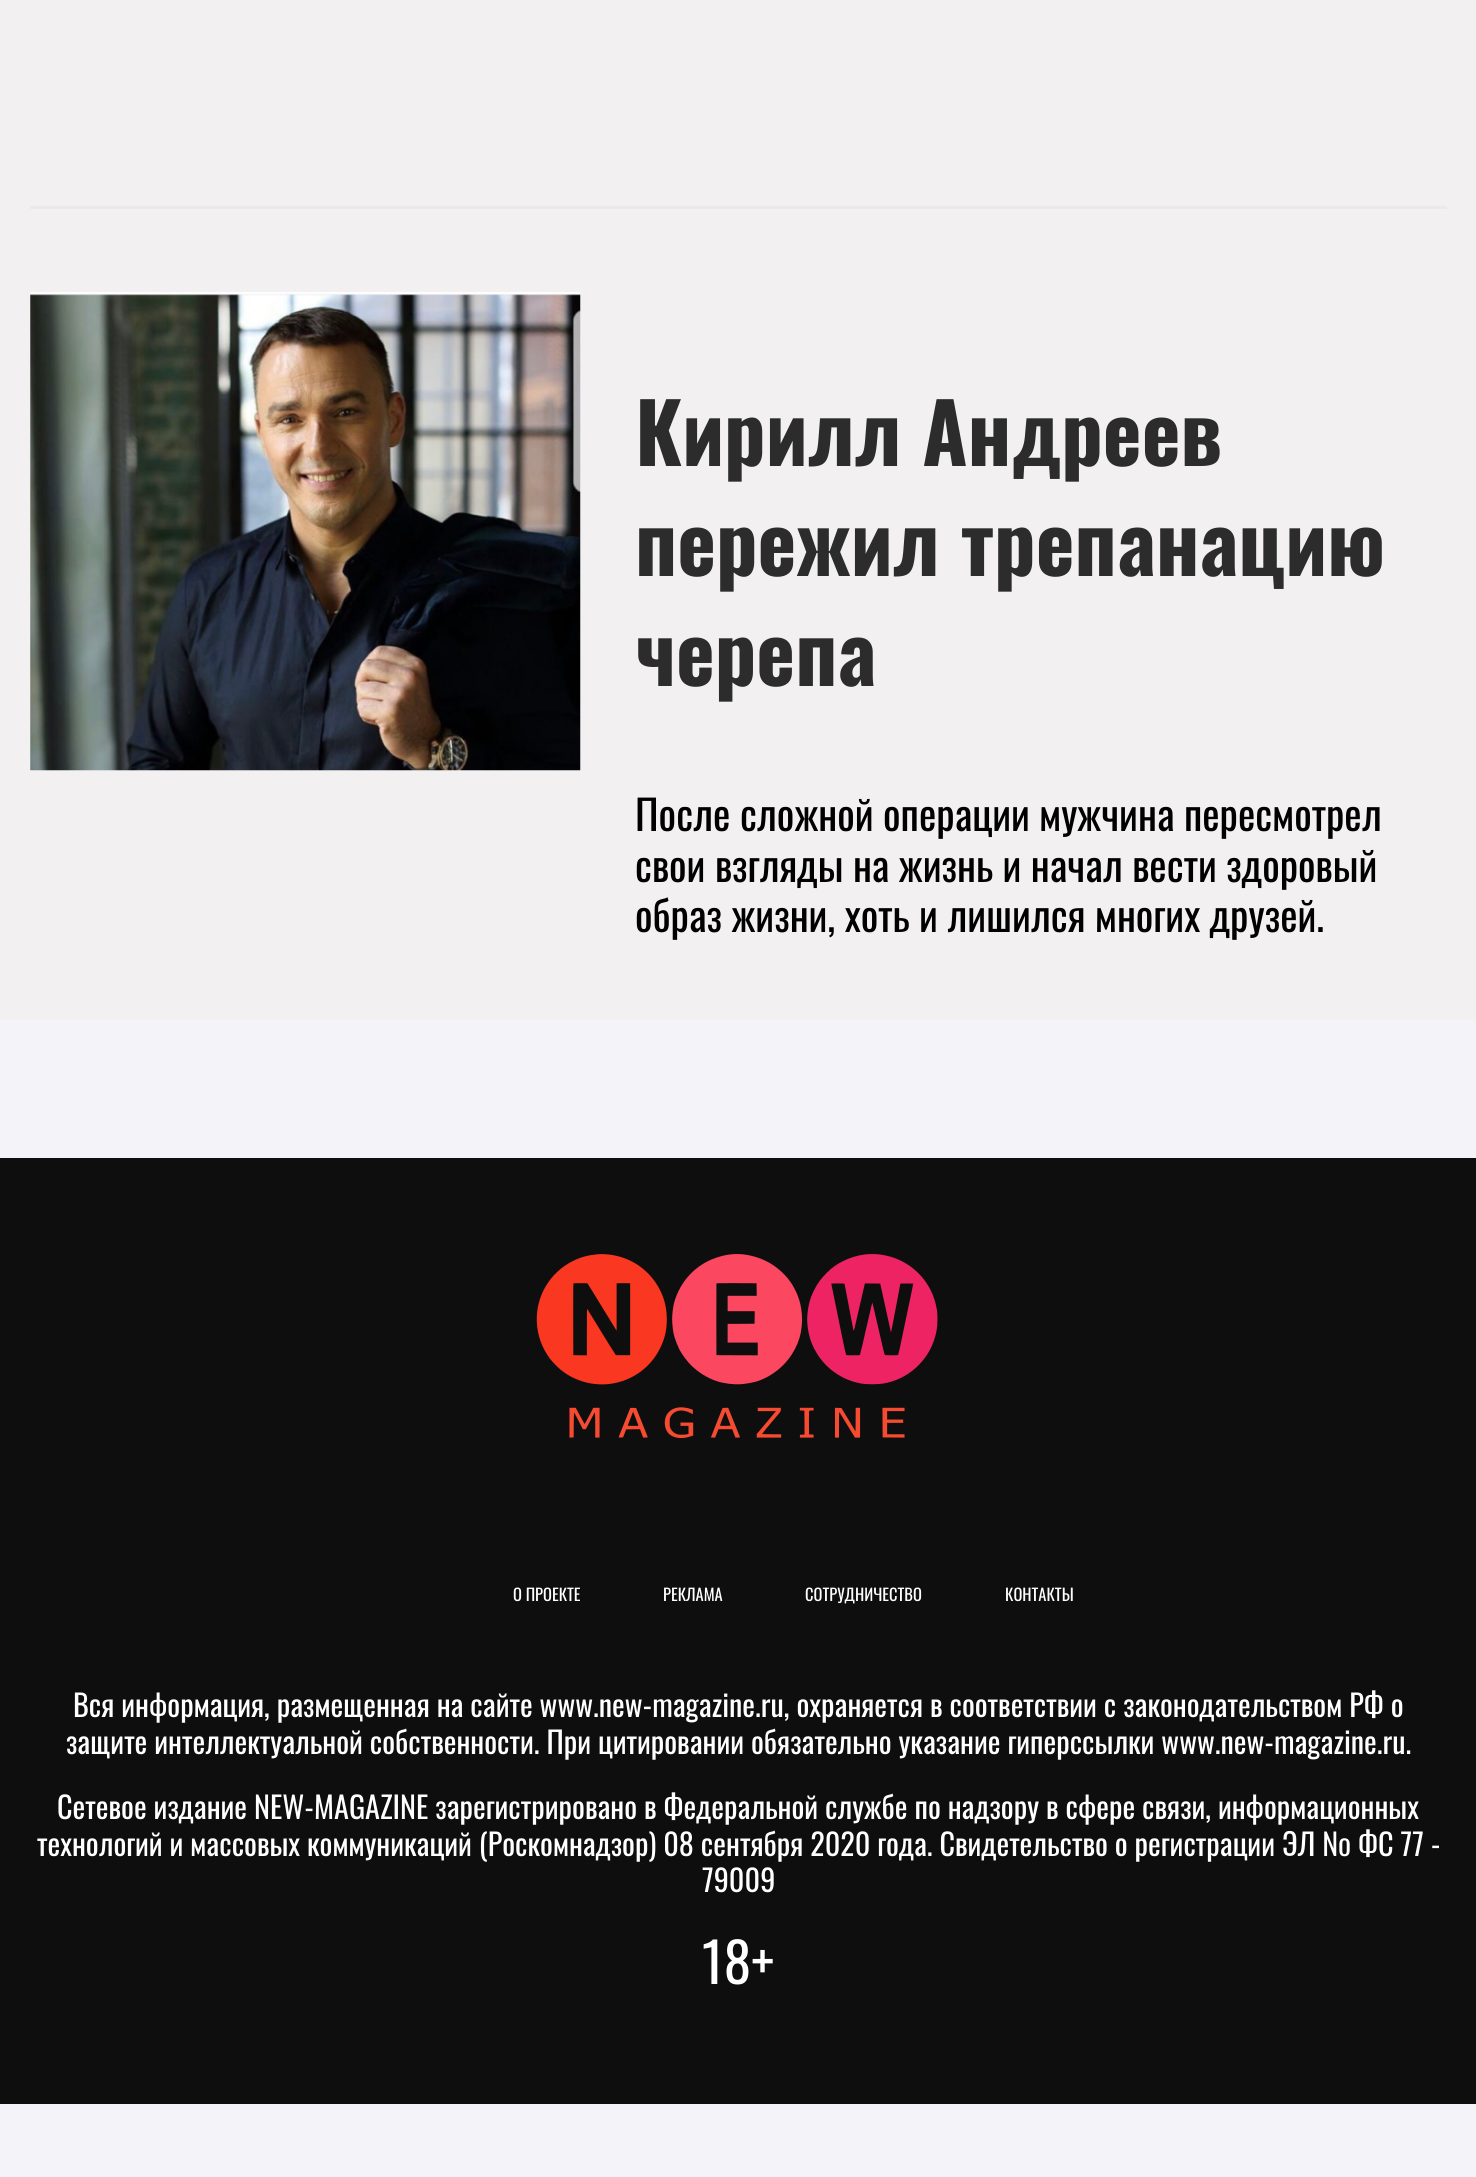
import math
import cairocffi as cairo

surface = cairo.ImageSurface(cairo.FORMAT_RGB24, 1476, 2177)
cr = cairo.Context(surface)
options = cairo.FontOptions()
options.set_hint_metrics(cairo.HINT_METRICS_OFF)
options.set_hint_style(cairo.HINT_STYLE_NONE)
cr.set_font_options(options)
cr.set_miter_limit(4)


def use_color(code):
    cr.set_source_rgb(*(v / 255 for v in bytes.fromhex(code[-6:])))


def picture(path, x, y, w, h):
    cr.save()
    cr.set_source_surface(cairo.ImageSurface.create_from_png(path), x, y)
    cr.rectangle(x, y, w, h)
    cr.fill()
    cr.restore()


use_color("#f3f3f9")
cr.paint()
use_color("#f2f0f1")
cr.rectangle(0, 0, 1476, 1020)
cr.fill()
use_color("#eaeaea")
cr.rectangle(30, 206, 1417, 3)
cr.fill()
picture("img1.png", 30, 292, 551, 479)
cr.select_font_face("Oswald", cairo.FONT_SLANT_NORMAL, cairo.FONT_WEIGHT_BOLD)
cr.set_font_size(82.5)
use_color("#2c2c2c")
cr.move_to(635, 466)
cr.show_text("Кирилл Андреев")
cr.move_to(635, 576)
cr.show_text("пережил трепанацию")
cr.move_to(635, 686)
cr.show_text("черепа")
cr.select_font_face("Oswald")
cr.set_font_size(41.25)
use_color("#000000")
cr.move_to(635, 831)
cr.show_text("После сложной операции мужчина пересмотрел")
cr.move_to(635, 882)
cr.show_text("свои взгляды на жизнь и начал вести здоровый")
cr.move_to(635, 932)
cr.show_text("образ жизни, хоть и лишился многих друзей.")
use_color("#0e0e0e")
cr.rectangle(0, 1158, 1476, 946)
cr.fill()
picture("img2.png", 536, 1254, 402, 184)
cr.set_font_size(16.5)
use_color("#ffffff")
cr.move_to(513, 1601)
cr.show_text("О ПРОЕКТЕ")
cr.move_to(663, 1601)
cr.show_text("РЕКЛАМА")
cr.move_to(805, 1601)
cr.show_text("СОТРУДНИЧЕСТВО")
cr.move_to(1005, 1601)
cr.show_text("КОНТАКТЫ")
cr.set_font_size(30.25)
cr.move_to(73, 1717)
cr.show_text("Вся информация, размещенная на сайте www.new-magazine.ru, охраняется в соответствии с законодательством РФ о")
cr.move_to(66, 1754)
cr.show_text("защите интеллектуальной собственности. При цитировании обязательно указание гиперссылки www.new-magazine.ru.")
cr.move_to(57, 1819)
cr.show_text("Сетевое издание NEW-MAGAZINE зарегистрировано в Федеральной службе по надзору в сфере связи, информационных")
cr.move_to(37, 1856)
cr.show_text("технологий и массовых коммуникаций (Роскомнадзор) 08 сентября 2020 года. Свидетельство о регистрации ЭЛ № ФС 77 -")
cr.move_to(702, 1892)
cr.show_text("79009")
cr.set_font_size(55)
cr.move_to(702, 1984)
cr.show_text("18+")
surface.write_to_png("result.png")
